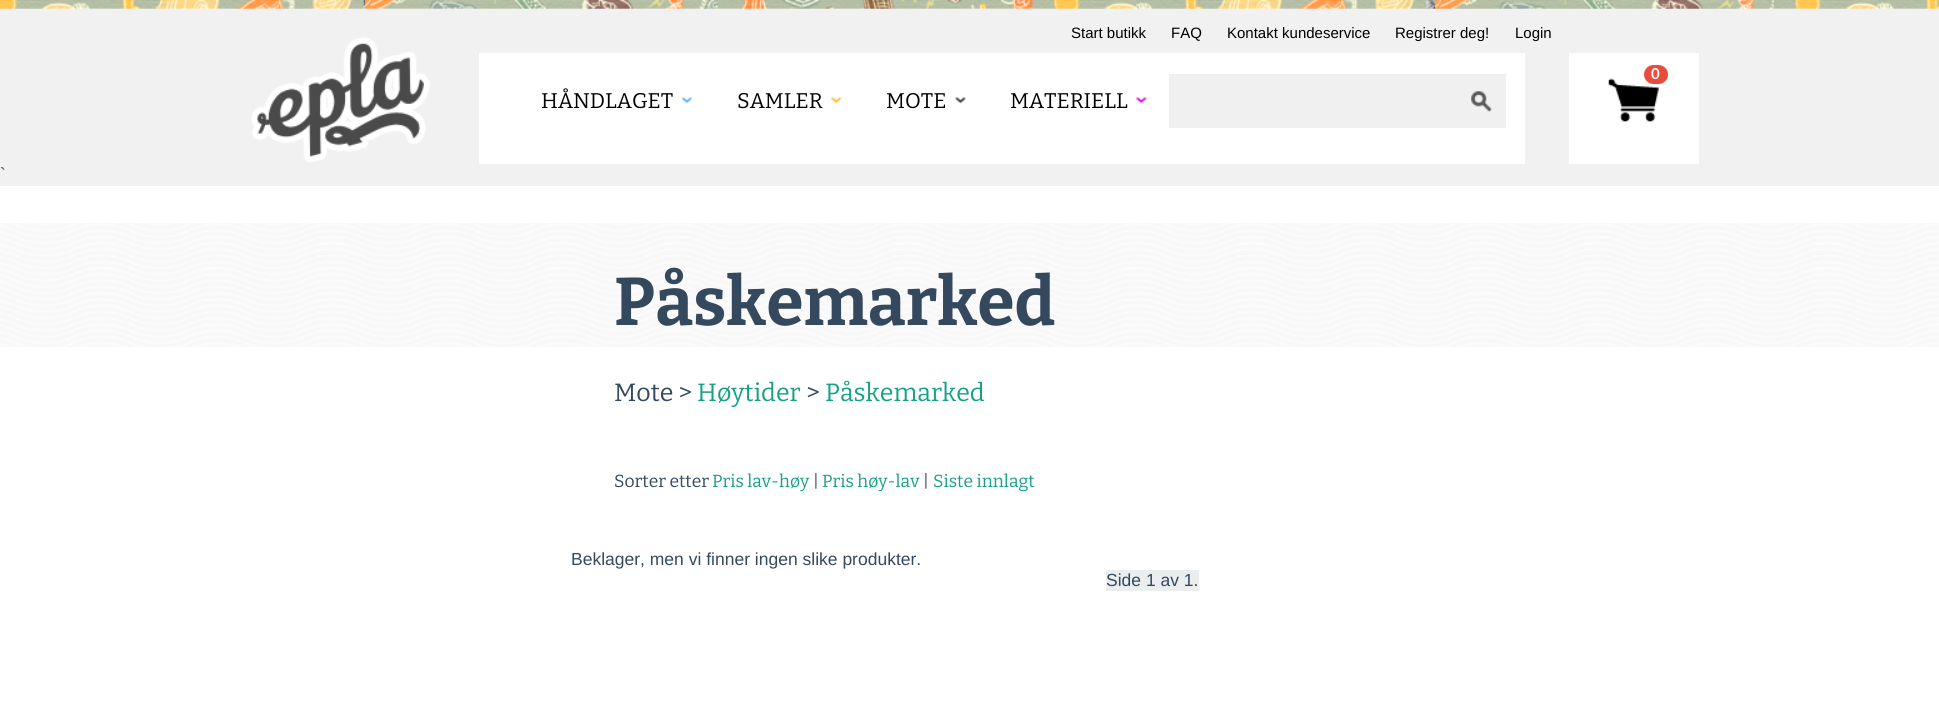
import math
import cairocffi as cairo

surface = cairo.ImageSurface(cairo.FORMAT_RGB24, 1939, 711)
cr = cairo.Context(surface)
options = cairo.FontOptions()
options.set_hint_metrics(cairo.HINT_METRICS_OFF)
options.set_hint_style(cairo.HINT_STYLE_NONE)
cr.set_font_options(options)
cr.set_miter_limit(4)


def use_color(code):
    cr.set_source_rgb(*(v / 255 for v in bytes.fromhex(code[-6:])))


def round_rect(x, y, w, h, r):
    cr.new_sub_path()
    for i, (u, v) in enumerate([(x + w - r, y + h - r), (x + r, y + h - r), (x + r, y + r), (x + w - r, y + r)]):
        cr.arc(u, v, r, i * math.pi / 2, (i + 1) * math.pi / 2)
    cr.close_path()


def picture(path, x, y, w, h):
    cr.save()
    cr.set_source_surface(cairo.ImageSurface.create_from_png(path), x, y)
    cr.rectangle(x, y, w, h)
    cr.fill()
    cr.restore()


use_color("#ffffff")
cr.paint()
picture("img1.png", 0, 0, 1939, 9)
use_color("#f1f1f1")
cr.rectangle(0, 9, 1939, 177)
cr.fill()
cr.select_font_face("Liberation Sans")
cr.set_font_size(15)
use_color("#000000")
cr.move_to(1071, 38)
cr.show_text("Start butikk")
cr.move_to(1171, 38)
cr.show_text("FAQ")
cr.move_to(1227, 38)
cr.show_text("Kontakt kundeservice")
cr.move_to(1395, 38)
cr.show_text("Registrer deg!")
cr.move_to(1515, 38)
cr.show_text("Login")
picture("img2.png", 251, 37, 179, 126)
use_color("#ffffff")
cr.rectangle(1569, 53, 130, 111)
cr.fill()
picture("img3.png", 1608, 78, 51, 44)
use_color("#e74c3c")
round_rect(1644, 65, 24, 19, 9.5)
cr.fill()
cr.select_font_face("Lato", cairo.FONT_SLANT_NORMAL, cairo.FONT_WEIGHT_BOLD)
use_color("#ffffff")
cr.move_to(1651, 79)
cr.show_text("0")
cr.rectangle(479, 53, 1046, 111)
cr.fill()
picture("img4.png", 681, 97, 12, 7)
cr.select_font_face("Bitter")
cr.set_font_size(21.25)
use_color("#000000")
cr.move_to(541, 108)
cr.show_text("HÅNDLAGET")
picture("img5.png", 831, 97, 11, 7)
cr.move_to(737, 108)
cr.show_text("SAMLER")
picture("img6.png", 954, 97, 12, 7)
cr.move_to(886, 108)
cr.show_text("MOTE")
picture("img7.png", 1136, 97, 11, 6)
cr.move_to(1010, 108)
cr.show_text("MATERIELL")
use_color("#f0f0f0")
cr.rectangle(1169, 74, 337, 54)
cr.fill()
picture("img8.png", 1471, 91, 21, 21)
cr.select_font_face("Liberation Sans")
cr.set_font_size(17.5)
use_color("#34495e")
cr.move_to(0, 180)
cr.show_text("`")
picture("img9.png", 0, 223, 1939, 124)
cr.select_font_face("Bitter", cairo.FONT_SLANT_NORMAL, cairo.FONT_WEIGHT_BOLD)
cr.set_font_size(67.5)
cr.move_to(614, 325)
cr.show_text("Påskemarked")
cr.select_font_face("Bitter")
cr.set_font_size(25)
cr.move_to(614, 401)
cr.show_text("Mote >")
use_color("#16a085")
cr.move_to(697, 401)
cr.show_text("Høytider")
use_color("#34495e")
cr.move_to(806, 401)
cr.show_text(">")
use_color("#16a085")
cr.move_to(825, 401)
cr.show_text("Påskemarked")
cr.set_font_size(17.5)
use_color("#34495e")
cr.move_to(614, 487)
cr.show_text("Sorter etter")
use_color("#16a085")
cr.move_to(712, 487)
cr.show_text("Pris lav-høy")
use_color("#34495e")
cr.move_to(813, 487)
cr.show_text("|")
use_color("#16a085")
cr.move_to(822, 487)
cr.show_text("Pris høy-lav")
use_color("#34495e")
cr.move_to(923, 487)
cr.show_text("|")
use_color("#16a085")
cr.move_to(933, 487)
cr.show_text("Siste innlagt")
cr.select_font_face("Liberation Sans")
use_color("#34495e")
cr.move_to(571, 565)
cr.show_text("Beklager, men vi finner ingen slike produkter.")
use_color("#ebeeef")
cr.rectangle(1106, 570, 93, 21)
cr.fill()
use_color("#34495e")
cr.move_to(1106, 586)
cr.show_text("Side 1 av 1.")
surface.write_to_png("result.png")
